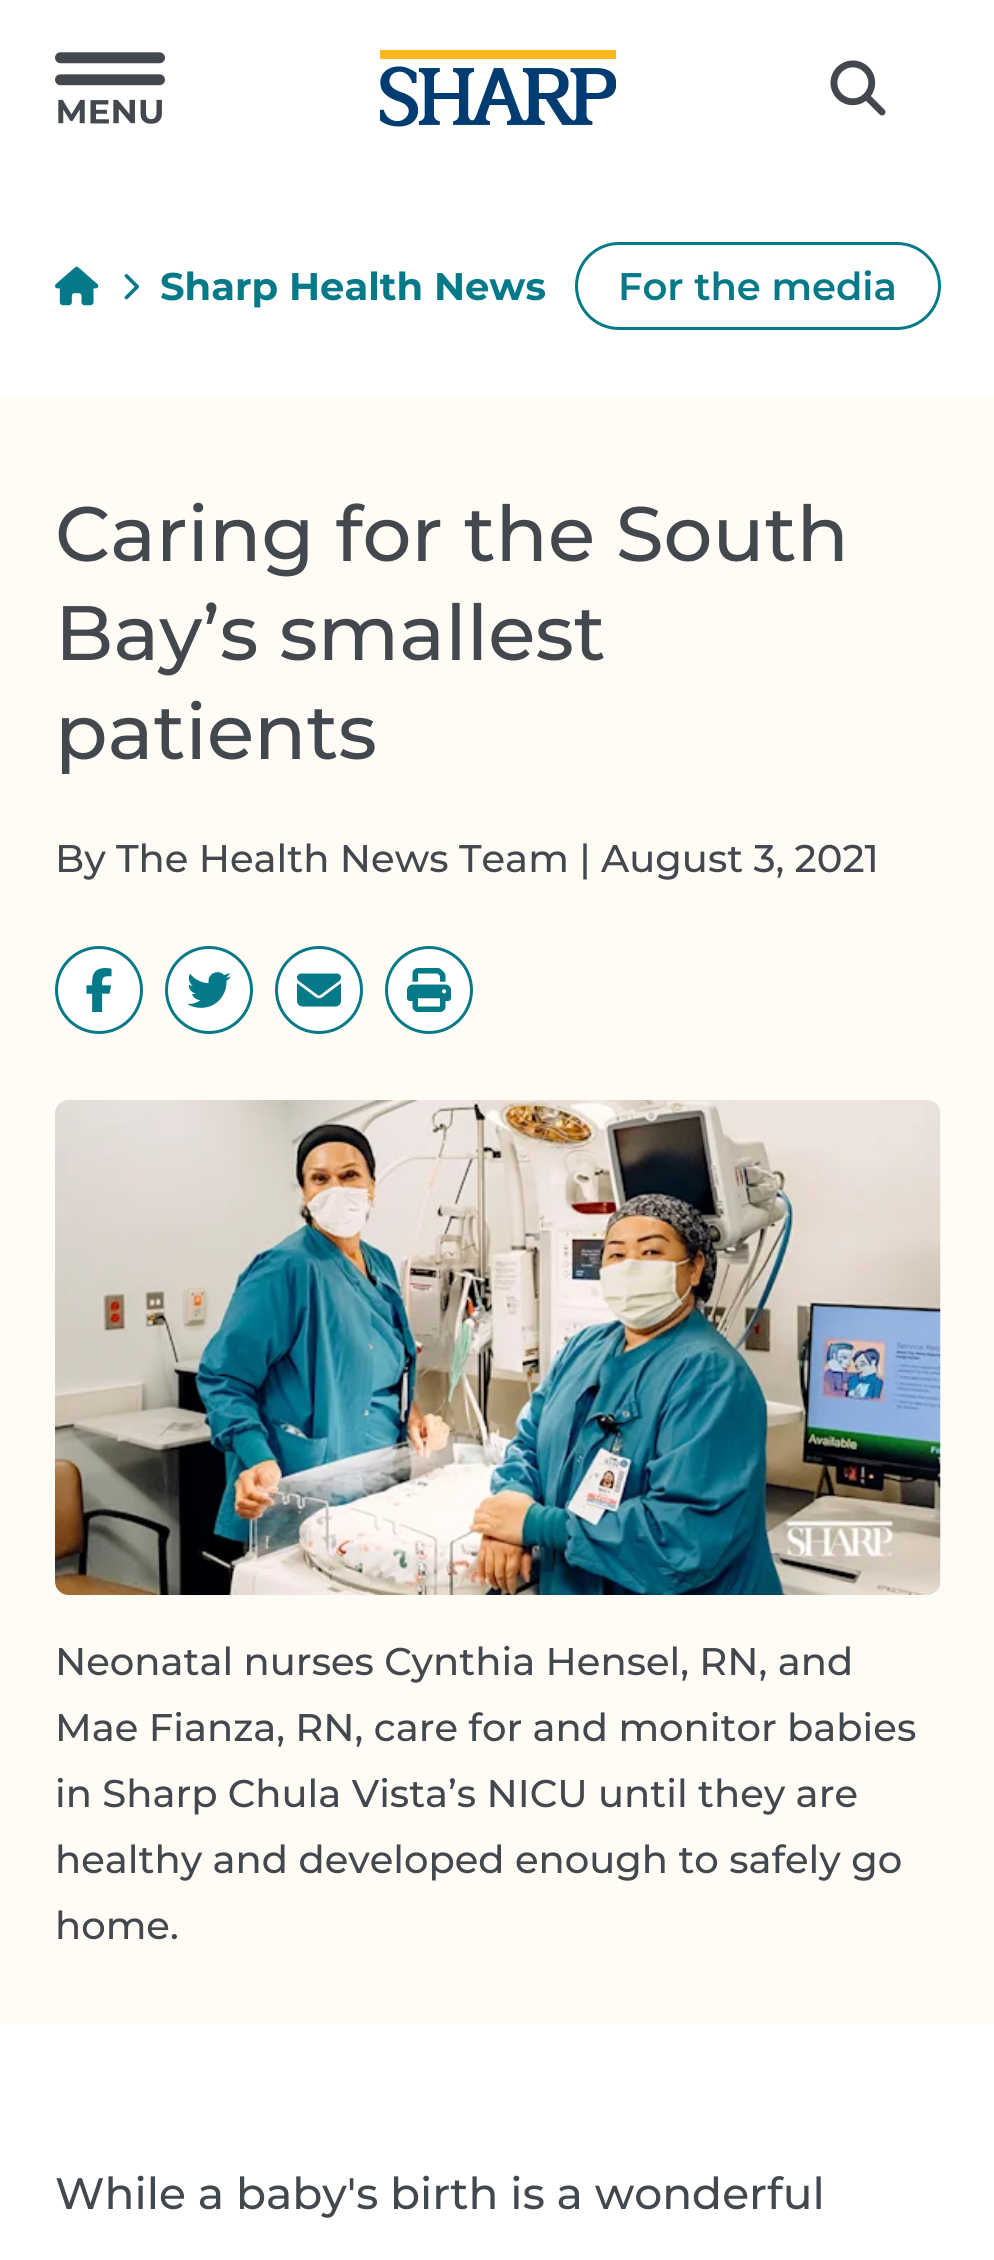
import math
import cairocffi as cairo

surface = cairo.ImageSurface(cairo.FORMAT_RGB24, 994, 2260)
cr = cairo.Context(surface)
options = cairo.FontOptions()
options.set_hint_metrics(cairo.HINT_METRICS_OFF)
options.set_hint_style(cairo.HINT_STYLE_NONE)
cr.set_font_options(options)
cr.set_miter_limit(4)


def use_color(code):
    cr.set_source_rgb(*(v / 255 for v in bytes.fromhex(code[-6:])))


def round_rect(x, y, w, h, r):
    cr.new_sub_path()
    for i, (u, v) in enumerate([(x + w - r, y + h - r), (x + r, y + h - r), (x + r, y + r), (x + w - r, y + r)]):
        cr.arc(u, v, r, i * math.pi / 2, (i + 1) * math.pi / 2)
    cr.close_path()


def picture(path, x, y, w, h):
    cr.save()
    cr.set_source_surface(cairo.ImageSurface.create_from_png(path), x, y)
    cr.rectangle(x, y, w, h)
    cr.fill()
    cr.restore()


use_color("#ffffff")
cr.paint()
picture("img1.png", 55, 52, 110, 72)
picture("img2.png", 380, 50, 236, 77)
picture("img3.png", 830, 60, 56, 56)
picture("img4.png", 55, 266, 44, 40)
picture("img5.png", 124, 274, 15, 26)
cr.select_font_face("Montserrat", cairo.FONT_SLANT_NORMAL, cairo.FONT_WEIGHT_BOLD)
cr.set_font_size(38.5)
use_color("#047987")
cr.move_to(160, 300)
cr.show_text("Sharp Health News")
round_rect(576.5, 243.5, 363, 85, 42.5)
cr.set_line_width(3)
cr.stroke()
cr.select_font_face("Montserrat SemiBold")
cr.move_to(618, 300)
cr.show_text("For the media")
use_color("#fffbf5")
cr.rectangle(0, 396, 994, 1628)
cr.fill()
cr.select_font_face("Montserrat Medium")
cr.set_font_size(77)
use_color("#42484d")
cr.move_to(55, 561)
cr.show_text("Caring for the South")
cr.move_to(55, 660)
cr.show_text("Bay’s smallest")
cr.move_to(55, 759)
cr.show_text("patients")
cr.set_font_size(38.5)
cr.move_to(55, 872)
cr.show_text("By The Health News Team | August 3, 2021")
use_color("#ffffff")
cr.new_path()
cr.arc(99, 990, 42.5, 0, 2 * math.pi)
cr.fill_preserve()
use_color("#047987")
cr.stroke()
picture("img6.png", 86, 968, 26, 44)
use_color("#ffffff")
cr.arc(209, 990, 42.5, 0, 2 * math.pi)
cr.fill_preserve()
use_color("#047987")
cr.stroke()
picture("img7.png", 187, 972, 44, 36)
use_color("#ffffff")
cr.arc(319, 990, 42.5, 0, 2 * math.pi)
cr.fill_preserve()
use_color("#047987")
cr.stroke()
picture("img8.png", 297, 973, 44, 34)
use_color("#ffffff")
cr.arc(429, 990, 42.5, 0, 2 * math.pi)
cr.fill_preserve()
use_color("#047987")
cr.stroke()
picture("img9.png", 407, 968, 44, 44)
picture("img10.png", 55, 1100, 886, 495)
use_color("#42484d")
cr.move_to(55, 1675)
cr.show_text("Neonatal nurses Cynthia Hensel, RN, and")
cr.move_to(55, 1741)
cr.show_text("Mae Fianza, RN, care for and monitor babies")
cr.move_to(55, 1807)
cr.show_text("in Sharp Chula Vista’s NICU until they are")
cr.move_to(55, 1873)
cr.show_text("healthy and developed enough to safely go")
cr.move_to(55, 1939)
cr.show_text("home.")
cr.set_font_size(44)
cr.move_to(55, 2209)
cr.show_text("While a baby's birth is a wonderful")
surface.write_to_png("result.png")
